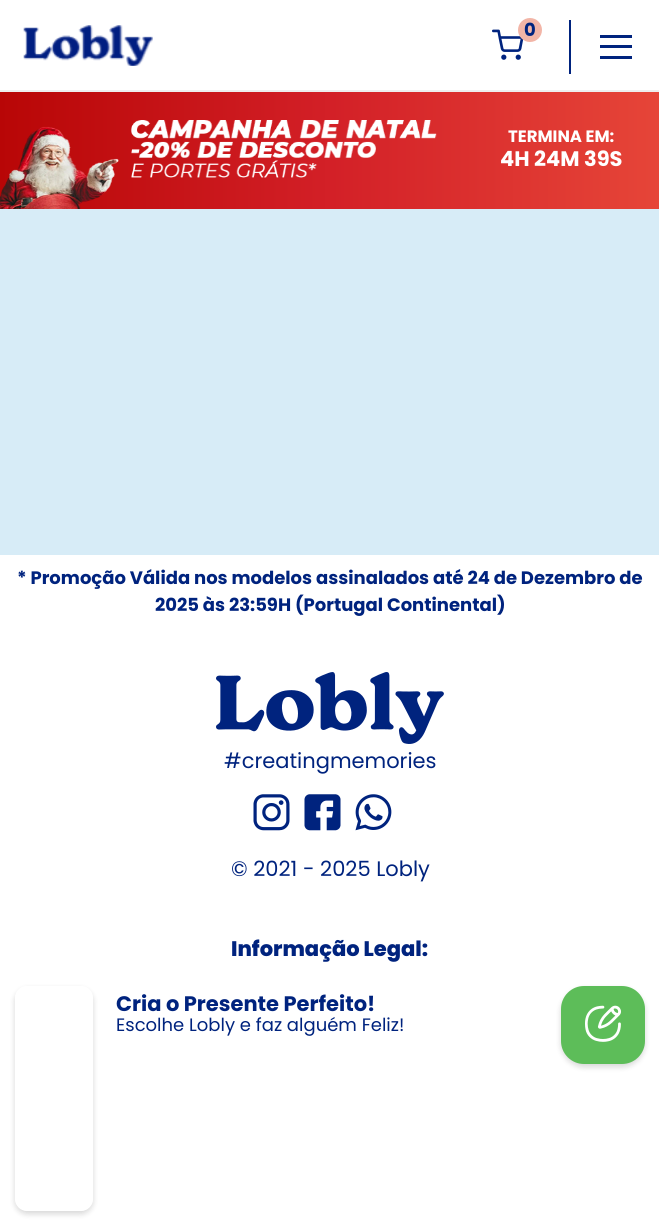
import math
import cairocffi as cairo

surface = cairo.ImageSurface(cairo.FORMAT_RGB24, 659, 1222)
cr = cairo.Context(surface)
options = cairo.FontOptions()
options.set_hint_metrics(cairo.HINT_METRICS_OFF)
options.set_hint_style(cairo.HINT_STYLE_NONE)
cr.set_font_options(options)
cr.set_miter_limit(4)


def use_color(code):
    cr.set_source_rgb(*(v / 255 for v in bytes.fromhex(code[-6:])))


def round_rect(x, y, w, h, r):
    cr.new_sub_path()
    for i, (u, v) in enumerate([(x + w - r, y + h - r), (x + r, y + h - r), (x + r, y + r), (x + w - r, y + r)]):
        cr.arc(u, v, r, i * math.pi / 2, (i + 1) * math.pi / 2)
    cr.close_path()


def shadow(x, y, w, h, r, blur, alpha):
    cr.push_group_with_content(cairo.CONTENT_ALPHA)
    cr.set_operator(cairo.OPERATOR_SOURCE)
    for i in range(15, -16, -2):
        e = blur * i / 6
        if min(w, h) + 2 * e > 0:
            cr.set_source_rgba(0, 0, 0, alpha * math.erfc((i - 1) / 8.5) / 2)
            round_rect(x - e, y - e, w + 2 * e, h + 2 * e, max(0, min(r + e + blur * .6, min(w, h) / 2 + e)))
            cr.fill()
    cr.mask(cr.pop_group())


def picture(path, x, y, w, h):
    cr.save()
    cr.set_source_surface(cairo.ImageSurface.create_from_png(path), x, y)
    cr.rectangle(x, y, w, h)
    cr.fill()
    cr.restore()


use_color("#ffffff")
cr.paint()
use_color("#d7ecf7")
cr.rectangle(0, 209, 659, 346)
cr.fill()
use_color("#eeeeee")
cr.rectangle(0, 90, 659, 2)
cr.fill()
picture("img1.png", 23, 25, 130, 41)
picture("img2.png", 492, 29, 32, 31)
use_color("#f2b5a7")
cr.arc(530, 30, 12, 0, 2 * math.pi)
cr.fill()
cr.select_font_face("Poppins", cairo.FONT_SLANT_NORMAL, cairo.FONT_WEIGHT_BOLD)
cr.set_font_size(18)
use_color("#00237e")
cr.move_to(524, 36)
cr.show_text("0")
cr.rectangle(569, 20, 2, 54)
cr.fill()
cr.rectangle(600, 35, 32, 3)
cr.fill()
cr.rectangle(600, 45, 32, 3)
cr.fill()
cr.rectangle(600, 56, 32, 3)
cr.fill()
gradient = cairo.LinearGradient(0, 149, 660, 149)
gradient.add_color_stop_rgba(0, 0.722, 0.024, 0.024, 1)
gradient.add_color_stop_rgba(0.5, 0.827, 0.125, 0.153, 1)
gradient.add_color_stop_rgba(1, 0.902, 0.271, 0.22, 1)
cr.set_source(gradient)
cr.rectangle(0, 92, 659, 117)
cr.fill()
picture("img3.png", 0, 120, 437, 89)
cr.set_font_size(16.5)
use_color("#ffffff")
cr.move_to(508, 142)
cr.show_text("TERMINA EM:")
cr.set_font_size(21)
cr.move_to(500, 166)
cr.show_text("4H 24M 39S")
cr.set_font_size(18)
use_color("#00237e")
cr.move_to(17, 584)
cr.show_text("* Promoção Válida nos modelos assinalados até 24 de Dezembro de")
cr.move_to(155, 611)
cr.show_text("2025 às 23:59H (Portugal Continental)")
picture("img4.png", 216, 672, 228, 72)
cr.select_font_face("Poppins")
cr.set_font_size(21)
cr.move_to(224, 768)
cr.show_text("#creatingmemories")
picture("img5.png", 253, 794, 37, 37)
picture("img6.png", 304, 794, 37, 37)
picture("img7.png", 355, 794, 37, 37)
cr.move_to(231, 876)
cr.show_text("© 2021 - 2025 Lobly")
cr.select_font_face("Poppins ExtraBold")
cr.move_to(231, 956)
cr.show_text("Informação Legal:")
cr.save()
cr.set_fill_rule(cairo.FILL_RULE_EVEN_ODD)
cr.new_path()
cr.move_to(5, 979)
cr.line_to(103, 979)
cr.line_to(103, 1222)
cr.line_to(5, 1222)
cr.close_path()
cr.move_to(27, 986)
cr.line_to(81, 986)
cr.curve_to(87.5, 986, 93, 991.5, 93, 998)
cr.line_to(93, 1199)
cr.curve_to(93, 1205.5, 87.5, 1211, 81, 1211)
cr.line_to(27, 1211)
cr.curve_to(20.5, 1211, 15, 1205.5, 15, 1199)
cr.line_to(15, 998)
cr.curve_to(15, 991.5, 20.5, 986, 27, 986)
cr.close_path()
cr.clip()
use_color("#000000")
shadow(15, 989, 78, 225, 12, 3, 0.16)
cr.restore()
cr.select_font_face("Poppins", cairo.FONT_SLANT_NORMAL, cairo.FONT_WEIGHT_BOLD)
cr.move_to(116, 1011)
cr.show_text("Cria o Presente Perfeito!")
use_color("#000000")
shadow(561, 989, 84, 78, 23, 3, 0.16)
use_color("#5dbd59")
round_rect(561, 986, 84, 78, 23)
cr.fill()
picture("img8.png", 585, 1005, 36, 37)
cr.select_font_face("Poppins")
cr.set_font_size(18)
use_color("#00237e")
cr.move_to(116, 1031)
cr.show_text("Escolhe Lobly e faz alguém Feliz!")
surface.write_to_png("result.png")
